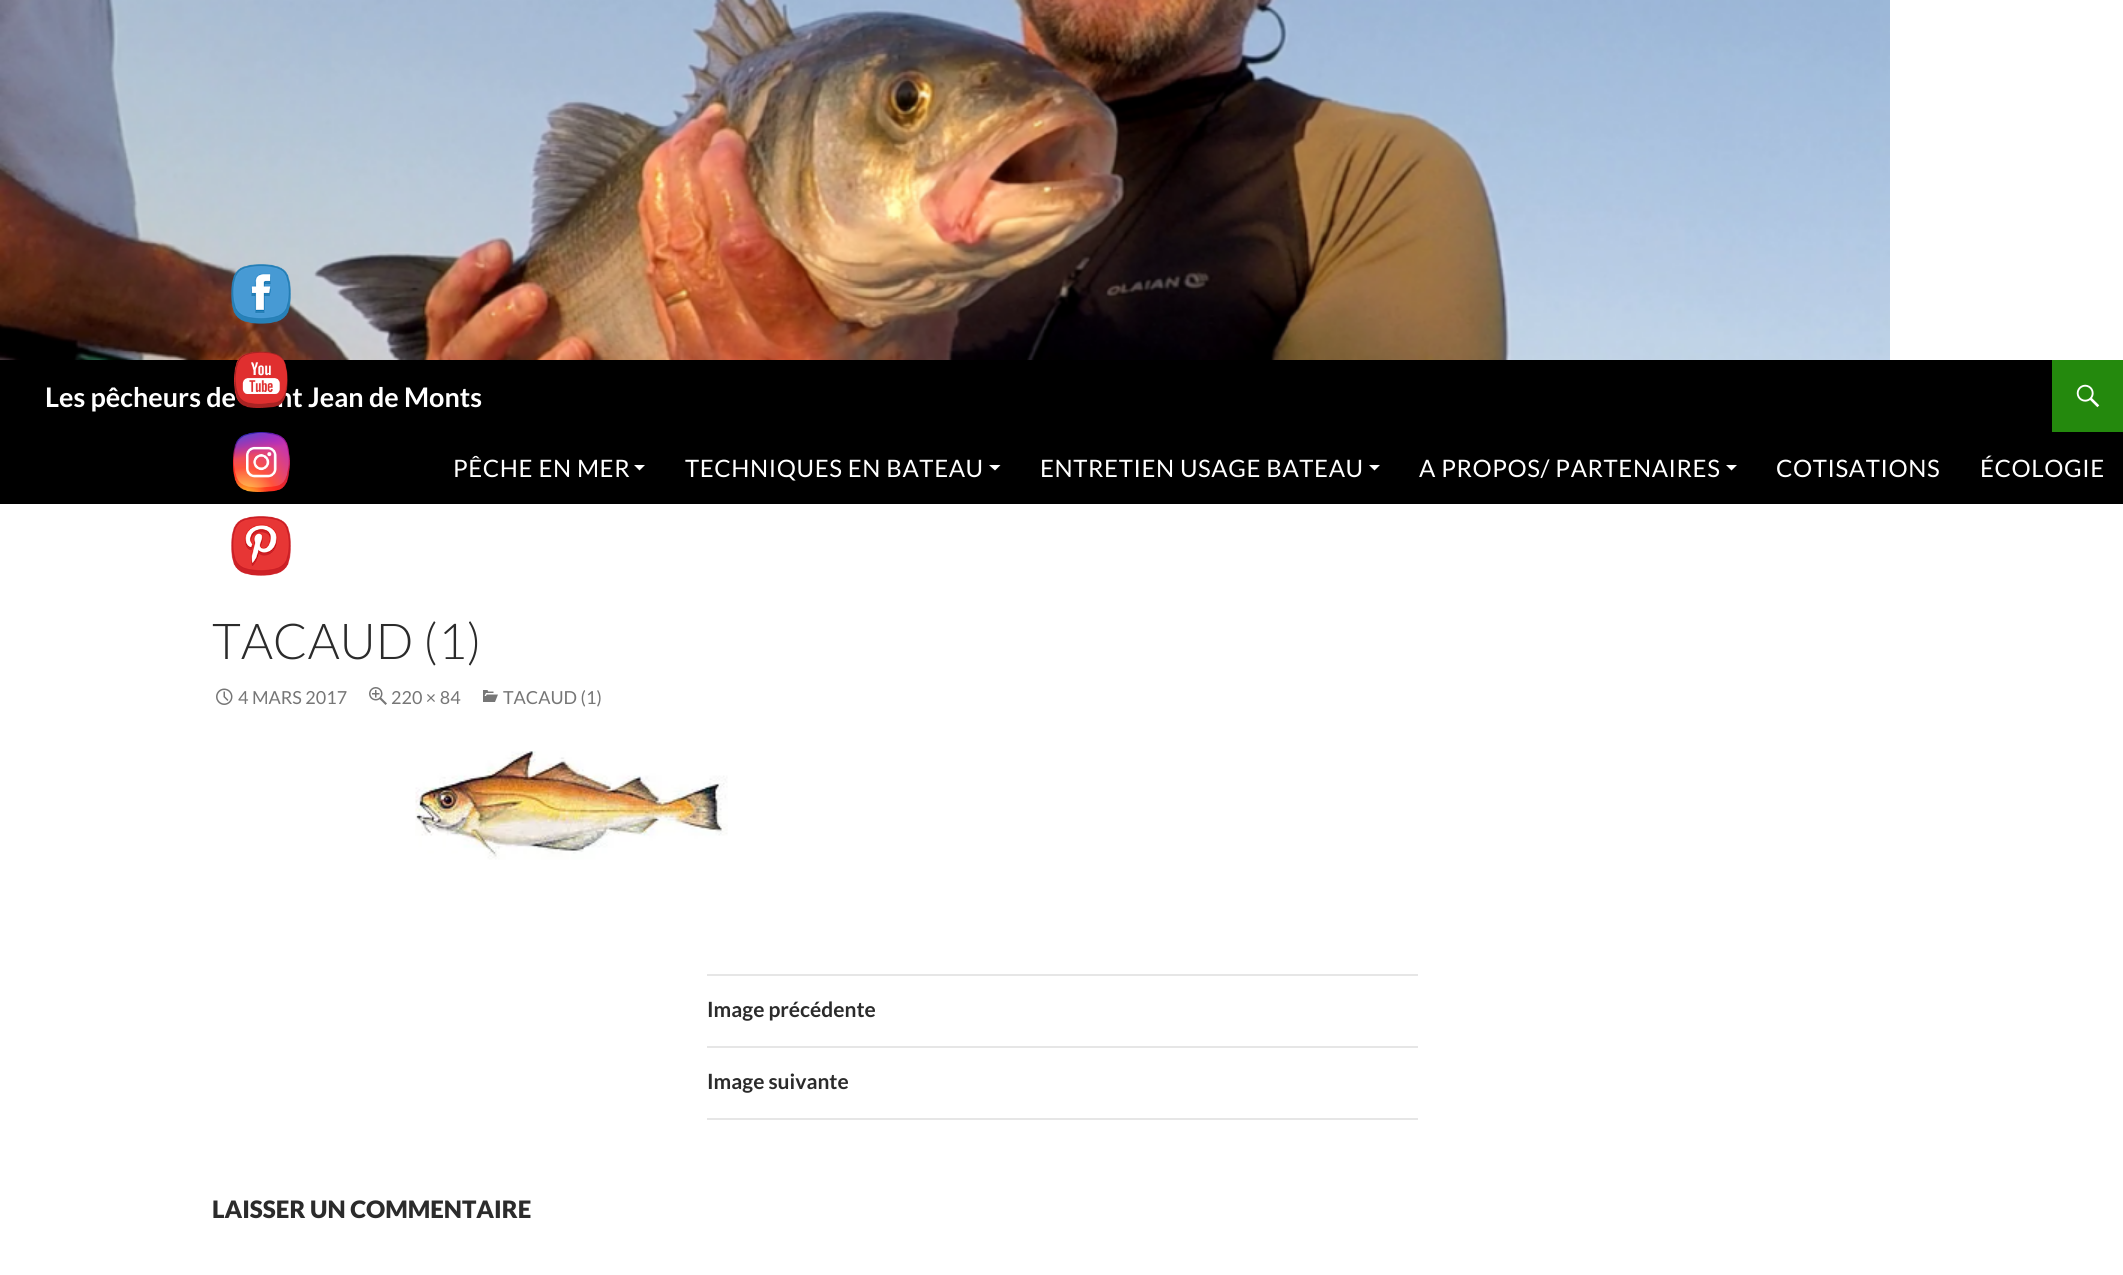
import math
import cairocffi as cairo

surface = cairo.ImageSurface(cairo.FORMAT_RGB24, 2123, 1275)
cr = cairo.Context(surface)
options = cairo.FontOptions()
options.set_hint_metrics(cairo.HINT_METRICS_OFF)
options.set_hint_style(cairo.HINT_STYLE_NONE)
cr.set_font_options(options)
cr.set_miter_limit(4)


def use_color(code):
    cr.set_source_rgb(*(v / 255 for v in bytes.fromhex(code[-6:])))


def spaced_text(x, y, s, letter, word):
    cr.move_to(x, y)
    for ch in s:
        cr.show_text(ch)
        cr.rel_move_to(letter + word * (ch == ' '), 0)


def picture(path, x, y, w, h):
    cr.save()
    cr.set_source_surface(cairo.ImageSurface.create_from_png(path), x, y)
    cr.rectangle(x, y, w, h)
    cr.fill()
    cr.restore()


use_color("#ffffff")
cr.paint()
picture("img5.png", 0, 0, 1890, 360)
picture("img1.png", 231, 264, 60, 60)
use_color("#000000")
cr.rectangle(0, 360, 2123, 144)
cr.fill()
cr.select_font_face("Lato", cairo.FONT_SLANT_NORMAL, cairo.FONT_WEIGHT_BOLD)
cr.set_font_size(27)
use_color("#ffffff")
cr.move_to(45, 407)
cr.show_text("Les pêcheurs de")
cr.move_to(277, 407)
cr.show_text("nt Jean de Monts")
picture("img2.png", 234, 351, 54, 57)
picture("img3.png", 233, 432, 57, 60)
picture("img4.png", 231, 516, 60, 60)
use_color("#24890d")
cr.rectangle(2052, 360, 71, 72)
cr.fill()
picture("img6.png", 2076, 384, 24, 24)
cr.select_font_face("Lato")
cr.set_font_size(24)
use_color("#ffffff")
spaced_text(453, 477, "PÊCHE EN MER", 0.6, 0)
cr.new_path()
cr.move_to(634, 465)
cr.line_to(645, 465)
cr.line_to(639.5, 470.5)
cr.close_path()
cr.fill()
spaced_text(685, 477, "TECHNIQUES EN BATEAU", 0.6, 0)
cr.new_path()
cr.move_to(989, 465)
cr.line_to(1000.5, 465)
cr.line_to(995, 470.5)
cr.close_path()
cr.fill()
spaced_text(1040, 477, "ENTRETIEN USAGE BATEAU", 0.6, 0)
cr.new_path()
cr.move_to(1369, 465)
cr.line_to(1380, 465)
cr.line_to(1374.5, 470.5)
cr.close_path()
cr.fill()
spaced_text(1419, 477, "A PROPOS/ PARTENAIRES", 0.6, 0)
cr.new_path()
cr.move_to(1726, 465)
cr.line_to(1737, 465)
cr.line_to(1731.5, 470.5)
cr.close_path()
cr.fill()
spaced_text(1776, 477, "COTISATIONS", 0.6, 0)
spaced_text(1980, 477, "ÉCOLOGIE", 0.6, 0)
cr.select_font_face("Lato Light")
cr.set_font_size(49.5)
use_color("#2b2b2b")
cr.move_to(212, 659)
cr.show_text("TACAUD (1)")
picture("img7.png", 216, 688, 17, 17)
cr.select_font_face("Lato")
cr.set_font_size(18)
use_color("#767676")
cr.move_to(238, 704)
cr.show_text("4 MARS 2017")
picture("img8.png", 369, 687, 18, 18)
cr.move_to(391, 704)
cr.show_text("220 × 84")
picture("img9.png", 483, 690, 15, 12)
cr.move_to(503, 704)
cr.show_text("TACAUD (1)")
picture("img10.png", 415, 751, 313, 109)
use_color("#e6e6e6")
cr.rectangle(707, 974, 711, 2)
cr.fill()
cr.rectangle(707, 1046, 711, 2)
cr.fill()
cr.select_font_face("Lato", cairo.FONT_SLANT_NORMAL, cairo.FONT_WEIGHT_BOLD)
cr.set_font_size(21)
use_color("#2b2b2b")
cr.move_to(707, 1017)
cr.show_text("Image précédente")
use_color("#e6e6e6")
cr.rectangle(707, 1118, 711, 2)
cr.fill()
use_color("#2b2b2b")
cr.move_to(707, 1089)
cr.show_text("Image suivante")
cr.select_font_face("Lato Black")
cr.set_font_size(24)
cr.move_to(212, 1218)
cr.show_text("LAISSER UN COMMENTAIRE")
surface.write_to_png("result.png")
